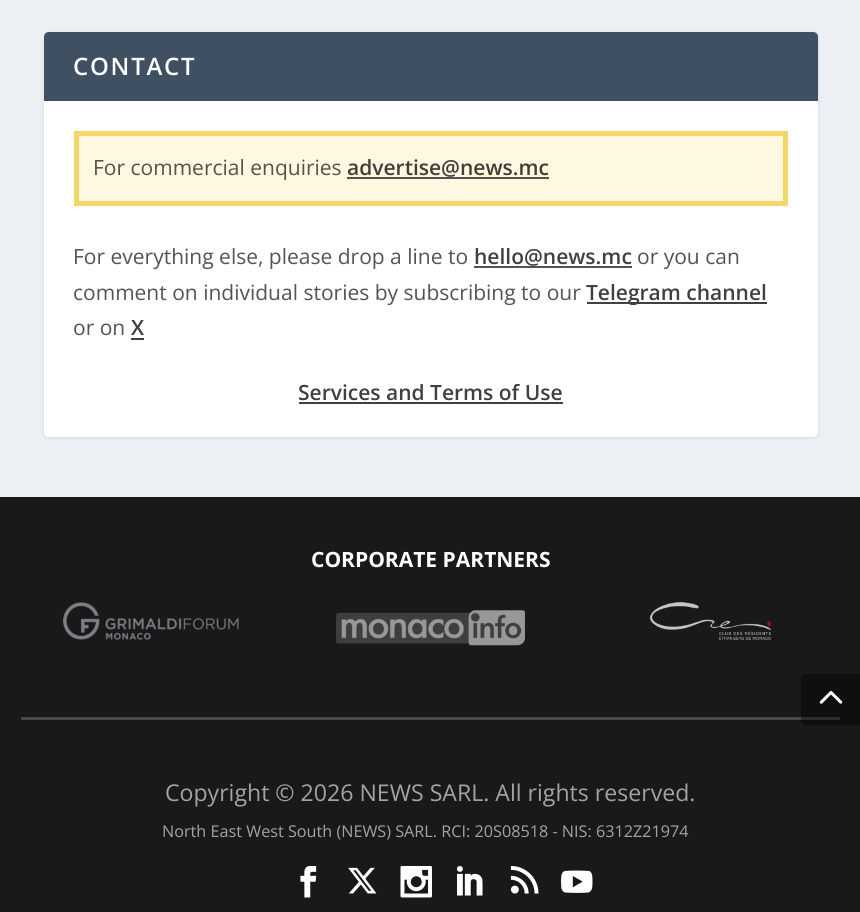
import math
import cairocffi as cairo

surface = cairo.ImageSurface(cairo.FORMAT_RGB24, 860, 912)
cr = cairo.Context(surface)
options = cairo.FontOptions()
options.set_hint_metrics(cairo.HINT_METRICS_OFF)
options.set_hint_style(cairo.HINT_STYLE_NONE)
cr.set_font_options(options)
cr.set_miter_limit(4)


def use_color(code):
    cr.set_source_rgb(*(v / 255 for v in bytes.fromhex(code[-6:])))


def spaced_text(x, y, s, letter, word):
    cr.move_to(x, y)
    for ch in s:
        cr.show_text(ch)
        cr.rel_move_to(letter + word * (ch == ' '), 0)


def round_rect(x, y, w, h, r):
    cr.new_sub_path()
    for i, (u, v) in enumerate([(x + w - r, y + h - r), (x + r, y + h - r), (x + r, y + r), (x + w - r, y + r)]):
        cr.arc(u, v, r, i * math.pi / 2, (i + 1) * math.pi / 2)
    cr.close_path()


def shadow(x, y, w, h, r, blur, alpha):
    cr.push_group_with_content(cairo.CONTENT_ALPHA)
    cr.set_operator(cairo.OPERATOR_SOURCE)
    for i in range(15, -16, -2):
        e = blur * i / 6
        if min(w, h) + 2 * e > 0:
            cr.set_source_rgba(0, 0, 0, alpha * math.erfc((i - 1) / 8.5) / 2)
            round_rect(x - e, y - e, w + 2 * e, h + 2 * e, max(0, min(r + e + blur * .6, min(w, h) / 2 + e)))
            cr.fill()
    cr.mask(cr.pop_group())


def picture(path, x, y, w, h):
    cr.save()
    cr.set_source_surface(cairo.ImageSurface.create_from_png(path), x, y)
    cr.rectangle(x, y, w, h)
    cr.fill()
    cr.restore()


use_color("#ecf0f5")
cr.paint()
use_color("#000000")
shadow(44, 33, 774, 405, 5, 2, 0.1)
use_color("#ffffff")
round_rect(44, 32, 774, 405, 5)
cr.fill()
use_color("#3e5062")
cr.new_path()
cr.move_to(49, 32)
cr.line_to(813, 32)
cr.curve_to(816, 32, 818, 34, 818, 37)
cr.line_to(818, 101)
cr.line_to(44, 101)
cr.line_to(44, 37)
cr.curve_to(44, 34, 46, 32, 49, 32)
cr.close_path()
cr.fill()
cr.select_font_face("Open Sans SemiBold")
cr.set_font_size(24)
use_color("#ffffff")
spaced_text(73, 75, "CONTACT", 1.75, 0)
use_color("#fef8e0")
cr.rectangle(76.5, 133.5, 709, 70)
cr.fill_preserve()
use_color("#f3d769")
cr.set_line_width(5)
cr.stroke()
cr.select_font_face("Open Sans")
cr.set_font_size(21)
use_color("#54524a")
cr.move_to(93, 175)
cr.show_text("For commercial enquiries")
cr.select_font_face("Open Sans SemiBold")
use_color("#403e38")
cr.move_to(347, 175)
cr.show_text("advertise@news.mc")
use_color("#54524a")
cr.rectangle(347, 177, 202, 2)
cr.fill()
cr.select_font_face("Open Sans")
use_color("#545454")
cr.move_to(73, 264)
cr.show_text("For everything else, please drop a line to")
cr.select_font_face("Open Sans SemiBold")
use_color("#404040")
cr.move_to(474, 264)
cr.show_text("hello@news.mc")
use_color("#545454")
cr.rectangle(474, 266, 158, 2)
cr.fill()
cr.select_font_face("Open Sans")
cr.move_to(637, 264)
cr.show_text("or you can")
cr.move_to(73, 300)
cr.show_text("comment on individual stories by subscribing to our")
use_color("#404040")
cr.rectangle(587, 302, 180, 2)
cr.fill()
cr.select_font_face("Open Sans SemiBold")
cr.move_to(586, 300)
cr.show_text("Telegram channel")
cr.select_font_face("Open Sans")
use_color("#545454")
cr.move_to(73, 335)
cr.show_text("or on")
cr.select_font_face("Open Sans SemiBold")
use_color("#404040")
cr.move_to(131, 335)
cr.show_text("X")
cr.rectangle(131, 338, 13, 2)
cr.fill()
cr.move_to(298, 400)
cr.show_text("Services and Terms of Use")
cr.rectangle(299, 402, 264, 2)
cr.fill()
use_color("#191919")
cr.rectangle(0, 497, 860, 415)
cr.fill()
cr.select_font_face("Open Sans", cairo.FONT_SLANT_NORMAL, cairo.FONT_WEIGHT_BOLD)
use_color("#ffffff")
cr.move_to(311, 567)
cr.show_text("CORPORATE PARTNERS")
picture("img1.png", 63, 602, 176, 38)
picture("img2.png", 336, 610, 189, 36)
picture("img3.png", 650, 602, 122, 38)
use_color("#494949")
cr.rectangle(21, 717, 819, 3)
cr.fill()
cr.select_font_face("Open Sans")
cr.set_font_size(23.1)
use_color("#a3a3a3")
cr.move_to(165, 801)
cr.show_text("Copyright © 2026 NEWS SARL. All rights reserved.")
cr.set_font_size(16.2)
cr.move_to(162, 837)
cr.show_text("North East West South (NEWS) SARL. RCI: 20S08518 - NIS: 6312Z21974")
picture("img4.png", 300, 866, 17, 32)
picture("img5.png", 348, 867, 29, 27)
picture("img6.png", 400, 866, 32, 32)
picture("img7.png", 457, 866, 26, 30)
picture("img8.png", 510, 866, 29, 28)
picture("img9.png", 561, 870, 32, 23)
cr.set_source_rgba(0, 0, 0, 0.4)
cr.new_path()
cr.move_to(806, 674)
cr.line_to(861, 674)
cr.line_to(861, 725)
cr.line_to(806, 725)
cr.curve_to(803, 725, 801, 723, 801, 720)
cr.line_to(801, 679)
cr.curve_to(801, 676, 803, 674, 806, 674)
cr.close_path()
cr.fill()
picture("img10.png", 819, 691, 24, 13)
surface.write_to_png("result.png")
